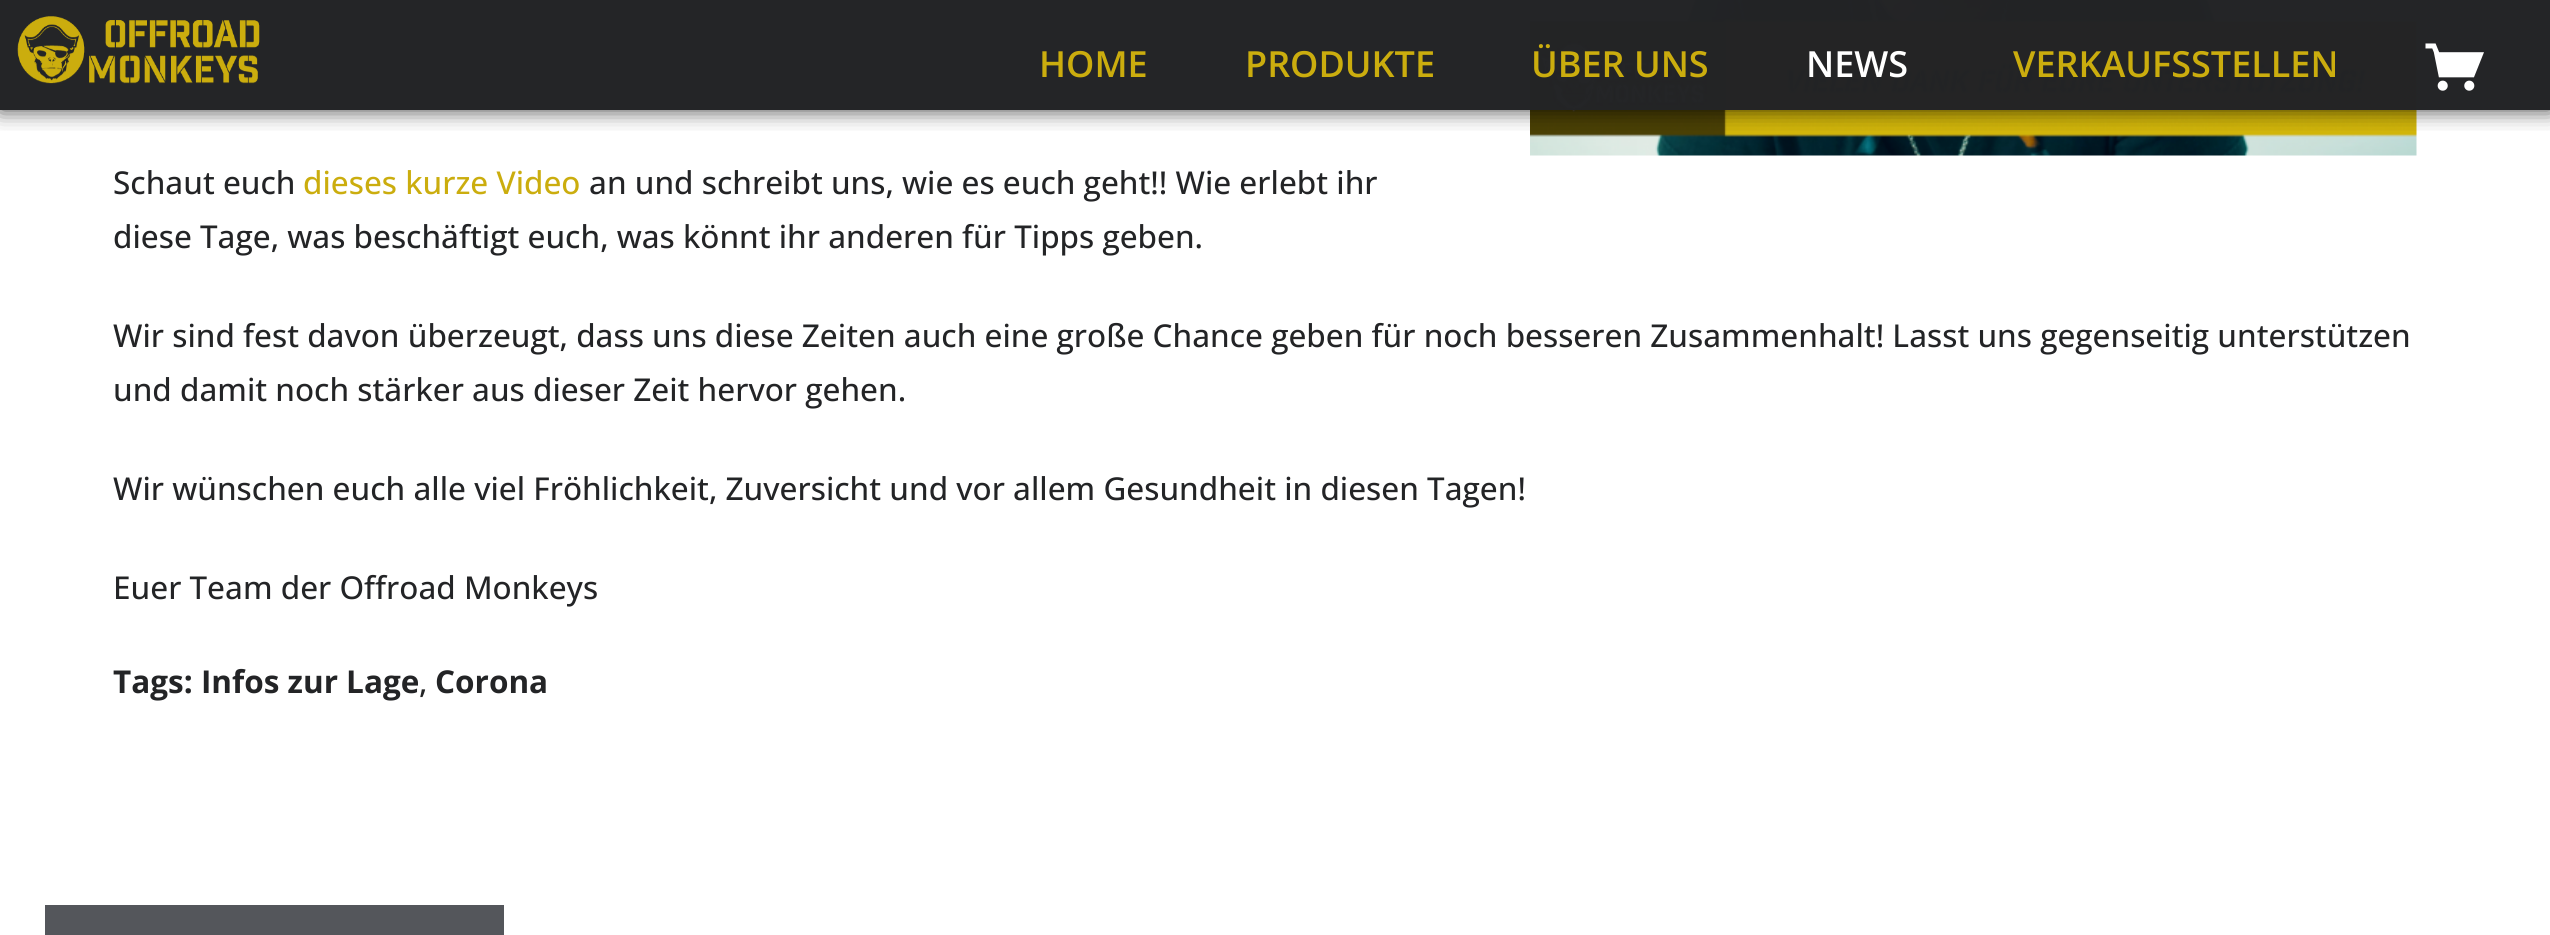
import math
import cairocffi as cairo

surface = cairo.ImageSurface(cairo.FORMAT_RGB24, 2550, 935)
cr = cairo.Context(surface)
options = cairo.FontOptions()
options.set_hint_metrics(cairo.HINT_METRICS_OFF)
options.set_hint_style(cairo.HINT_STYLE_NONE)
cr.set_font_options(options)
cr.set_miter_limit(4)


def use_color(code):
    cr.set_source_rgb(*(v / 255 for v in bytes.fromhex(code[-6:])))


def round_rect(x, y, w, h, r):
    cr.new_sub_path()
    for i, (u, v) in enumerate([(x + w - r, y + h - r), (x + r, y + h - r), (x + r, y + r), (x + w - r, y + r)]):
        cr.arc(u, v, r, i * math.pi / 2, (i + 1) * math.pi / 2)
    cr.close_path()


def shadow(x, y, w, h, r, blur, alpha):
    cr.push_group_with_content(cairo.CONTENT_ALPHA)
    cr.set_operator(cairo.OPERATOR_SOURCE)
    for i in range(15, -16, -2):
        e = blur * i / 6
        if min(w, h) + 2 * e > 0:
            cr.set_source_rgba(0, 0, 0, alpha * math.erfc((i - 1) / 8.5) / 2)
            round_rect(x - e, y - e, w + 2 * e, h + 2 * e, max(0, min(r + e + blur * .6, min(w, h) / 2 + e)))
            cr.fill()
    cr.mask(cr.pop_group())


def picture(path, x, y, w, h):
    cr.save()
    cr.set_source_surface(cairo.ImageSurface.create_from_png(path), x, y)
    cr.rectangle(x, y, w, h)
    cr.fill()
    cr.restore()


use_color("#ffffff")
cr.paint()
picture("img3.png", 1530, 0, 887, 156)
cr.save()
cr.rectangle(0, 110, 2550, 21)
cr.clip()
use_color("#000000")
shadow(0, 0, 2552, 110, 0, 11, 0.75)
cr.restore()
cr.set_source_rgba(0.137, 0.141, 0.149, 0.99)
cr.rectangle(0, 0, 2550, 110)
cr.fill()
picture("img1.png", 17, 16, 243, 68)
cr.select_font_face("Open Sans SemiBold")
cr.set_font_size(36)
use_color("#cbad0e")
cr.move_to(1039, 77)
cr.show_text("HOME")
cr.move_to(1245, 77)
cr.show_text("PRODUKTE")
cr.move_to(1531, 77)
cr.show_text("ÜBER UNS")
use_color("#ffffff")
cr.move_to(1806, 77)
cr.show_text("NEWS")
use_color("#cbad0e")
cr.move_to(2013, 77)
cr.show_text("VERKAUFSSTELLEN")
picture("img2.png", 2425, 43, 59, 48)
cr.select_font_face("Open Sans Medium")
cr.set_font_size(31.5)
use_color("#232426")
cr.move_to(113, 194)
cr.show_text("Schaut euch")
use_color("#cbad0e")
cr.move_to(303, 194)
cr.show_text("dieses kurze Video")
use_color("#232426")
cr.move_to(589, 194)
cr.show_text("an und schreibt uns, wie es euch geht!! Wie erlebt ihr")
cr.move_to(113, 248)
cr.show_text("diese Tage, was beschäftigt euch, was könnt ihr anderen für Tipps geben.")
cr.move_to(113, 347)
cr.show_text("Wir sind fest davon überzeugt, dass uns diese Zeiten auch eine große Chance geben für noch besseren Zusammenhalt! Lasst uns gegenseitig unterstützen")
cr.move_to(113, 401)
cr.show_text("und damit noch stärker aus dieser Zeit hervor gehen.")
cr.move_to(113, 500)
cr.show_text("Wir wünschen euch alle viel Fröhlichkeit, Zuversicht und vor allem Gesundheit in diesen Tagen!")
cr.move_to(113, 599)
cr.show_text("Euer Team der Offroad Monkeys")
cr.select_font_face("Open Sans", cairo.FONT_SLANT_NORMAL, cairo.FONT_WEIGHT_BOLD)
cr.move_to(113, 693)
cr.show_text("Tags: Infos zur Lage")
cr.select_font_face("Open Sans Medium")
cr.move_to(419, 693)
cr.show_text(",")
cr.select_font_face("Open Sans", cairo.FONT_SLANT_NORMAL, cairo.FONT_WEIGHT_BOLD)
cr.move_to(435, 693)
cr.show_text("Corona")
use_color("#54565b")
cr.rectangle(45, 905, 459, 30)
cr.fill()
surface.write_to_png("result.png")
